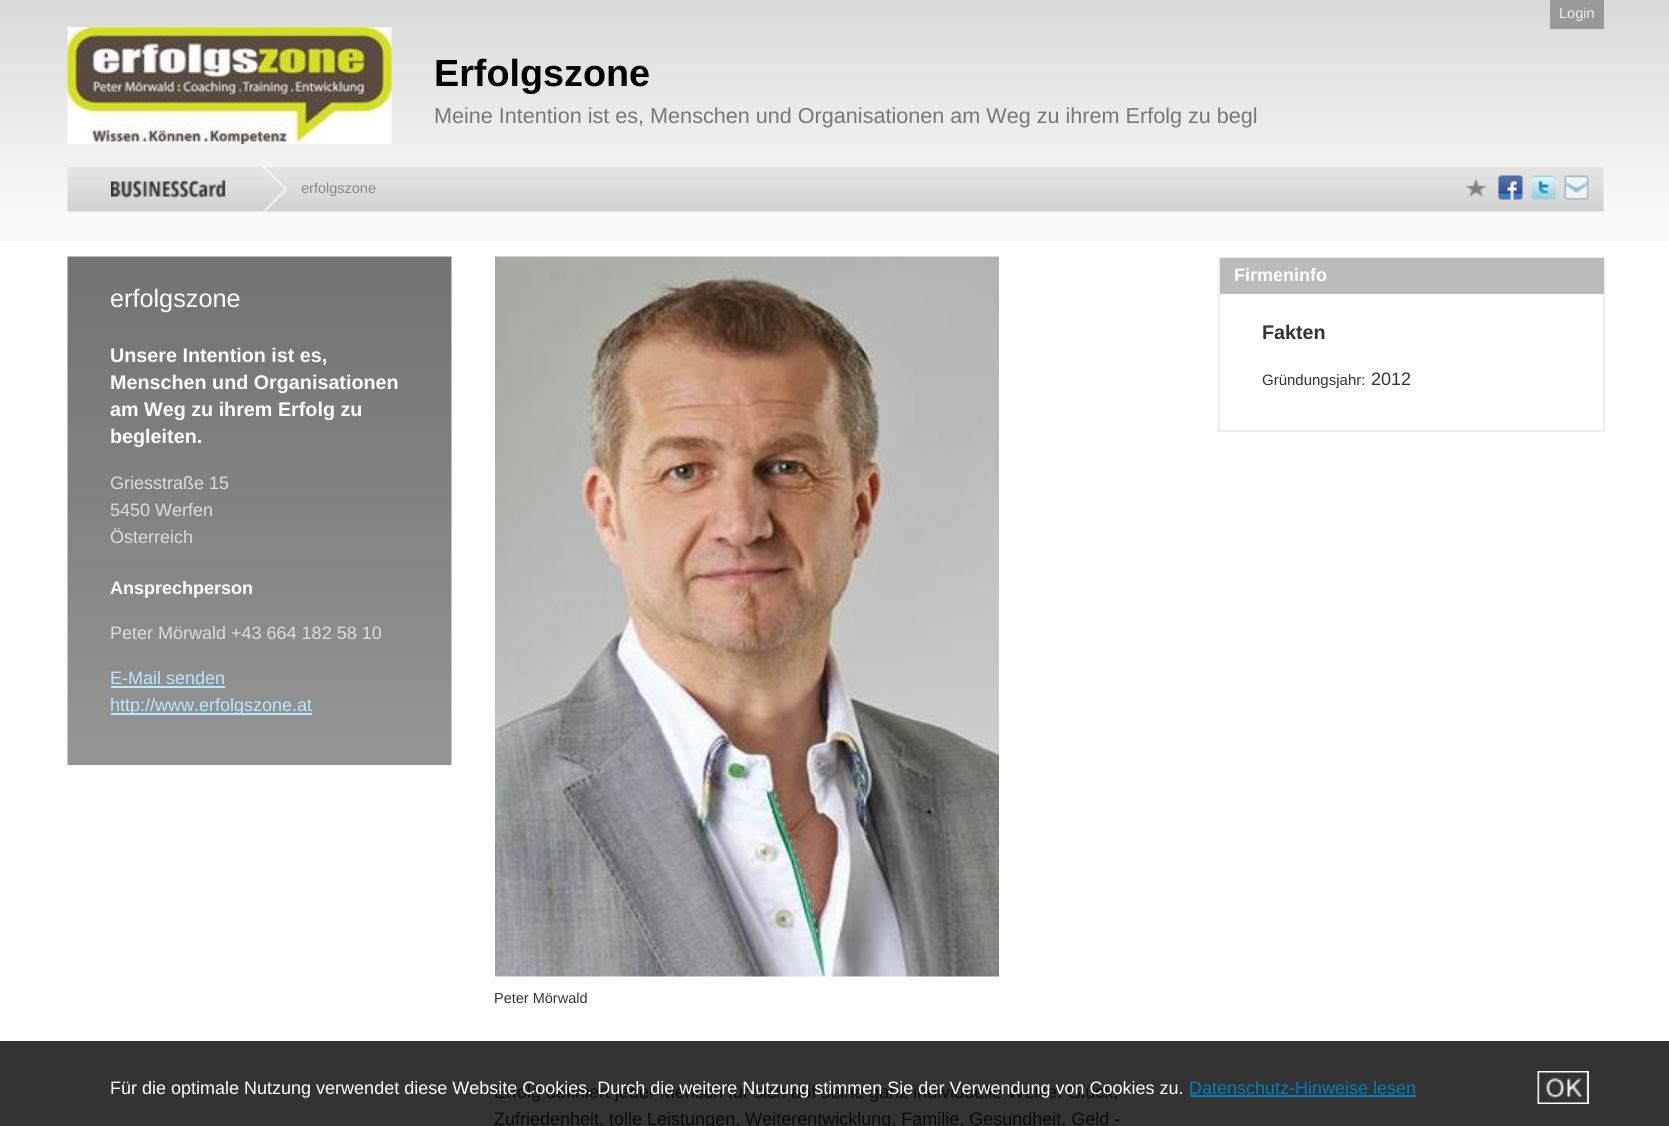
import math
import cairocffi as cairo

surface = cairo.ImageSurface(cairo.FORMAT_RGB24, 1669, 1126)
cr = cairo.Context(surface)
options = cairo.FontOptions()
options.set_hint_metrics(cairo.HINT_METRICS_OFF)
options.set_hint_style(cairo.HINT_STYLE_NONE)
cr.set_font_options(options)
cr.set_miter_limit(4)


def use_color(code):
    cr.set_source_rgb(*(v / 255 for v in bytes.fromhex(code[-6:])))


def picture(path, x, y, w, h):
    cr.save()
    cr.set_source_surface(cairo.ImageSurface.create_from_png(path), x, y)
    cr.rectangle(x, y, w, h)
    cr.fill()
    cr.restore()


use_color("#ffffff")
cr.paint()
use_color("#333333")
cr.rectangle(0, 1041, 1669, 85)
cr.fill()
picture("img1.png", 0, 0, 1669, 242)
use_color("#999999")
cr.rectangle(1550, 0, 54, 29)
cr.fill()
cr.select_font_face("Liberation Sans")
cr.set_font_size(14.5)
use_color("#eeeeee")
cr.move_to(1559, 18)
cr.show_text("Login")
picture("img2.png", 67, 27, 325, 117)
cr.select_font_face("Liberation Sans", cairo.FONT_SLANT_NORMAL, cairo.FONT_WEIGHT_BOLD)
cr.set_font_size(37.75)
use_color("#000000")
cr.move_to(434, 86)
cr.show_text("Erfolgszone")
cr.select_font_face("Liberation Sans")
cr.set_font_size(21.6)
use_color("#777777")
cr.move_to(434, 123)
cr.show_text("Meine Intention ist es, Menschen und Organisationen am Weg zu ihrem Erfolg zu begl")
picture("img3.png", 67, 165, 1537, 47)
use_color("#f2f2f2")
cr.rectangle(68, 165, 1536, 2)
cr.fill()
picture("img4.png", 111, 179, 115, 20)
picture("img5.png", 262, 166, 25, 46)
cr.set_font_size(14.5)
use_color("#888888")
cr.move_to(301, 193)
cr.show_text("erfolgszone")
picture("img6.png", 1465, 178, 22, 19)
picture("img7.png", 1498, 175, 25, 25)
picture("img8.png", 1531, 175, 25, 25)
picture("img9.png", 1564, 175, 25, 25)
picture("img10.png", 67, 256, 385, 509)
cr.set_font_size(25.25)
use_color("#ffffff")
cr.move_to(110, 307)
cr.show_text("erfolgszone")
cr.select_font_face("Liberation Sans", cairo.FONT_SLANT_NORMAL, cairo.FONT_WEIGHT_BOLD)
cr.set_font_size(19.75)
cr.move_to(110, 362)
cr.show_text("Unsere Intention ist es,")
cr.move_to(110, 389)
cr.show_text("Menschen und Organisationen")
cr.move_to(110, 416)
cr.show_text("am Weg zu ihrem Erfolg zu")
cr.move_to(110, 443)
cr.show_text("begleiten.")
cr.select_font_face("Liberation Sans")
cr.set_font_size(18)
use_color("#dddddd")
cr.move_to(110, 489)
cr.show_text("Griesstraße 15")
cr.move_to(110, 516)
cr.show_text("5450 Werfen")
cr.move_to(110, 543)
cr.show_text("Österreich")
cr.select_font_face("Liberation Sans", cairo.FONT_SLANT_NORMAL, cairo.FONT_WEIGHT_BOLD)
use_color("#ffffff")
cr.move_to(110, 594)
cr.show_text("Ansprechperson")
cr.select_font_face("Liberation Sans")
use_color("#dddddd")
cr.move_to(110, 639)
cr.show_text("Peter Mörwald +43 664 182 58 10")
use_color("#b9e9ff")
cr.move_to(110, 684)
cr.show_text("E-Mail senden")
cr.rectangle(111, 686, 114, 2)
cr.fill()
cr.rectangle(111, 713, 201, 2)
cr.fill()
cr.move_to(110, 711)
cr.show_text("http://www.erfolgszone.at")
cr.rectangle(1219, 258, 385, 173)
use_color("#eeeeee")
cr.stroke()
use_color("#bbbbbb")
cr.rectangle(1220, 258, 384, 36)
cr.fill()
cr.select_font_face("Liberation Sans", cairo.FONT_SLANT_NORMAL, cairo.FONT_WEIGHT_BOLD)
use_color("#ffffff")
cr.move_to(1234, 281)
cr.show_text("Firmeninfo")
cr.set_font_size(19.75)
use_color("#333333")
cr.move_to(1262, 339)
cr.show_text("Fakten")
cr.select_font_face("Liberation Sans")
cr.set_font_size(15)
cr.move_to(1262, 385)
cr.show_text("Gründungsjahr:")
cr.set_font_size(18)
cr.move_to(1371, 385)
cr.show_text("2012")
picture("img11.png", 495, 256, 504, 721)
cr.set_font_size(14.5)
cr.move_to(494, 1003)
cr.show_text("Peter Mörwald")
cr.set_font_size(18)
use_color("#0a0a0a")
cr.move_to(494, 1098)
cr.show_text("Erfolg definiert jeder Mensch für sich auf seine ganz individuelle Weise. Glück,")
cr.move_to(494, 1125)
cr.show_text("Zufriedenheit, tolle Leistungen, Weiterentwicklung, Familie, Gesundheit, Geld -")
use_color("#ffffff")
cr.move_to(110, 1094)
cr.show_text("Für die optimale Nutzung verwendet diese Website Cookies. Durch die weitere Nutzung stimmen Sie der Verwendung von Cookies zu.")
use_color("#0080bc")
cr.move_to(1189, 1094)
cr.show_text("Datenschutz-Hinweise lesen")
cr.rectangle(1190, 1095, 226, 2)
cr.fill()
picture("img12.png", 1537, 1071, 52, 33)
surface.write_to_png("result.png")
